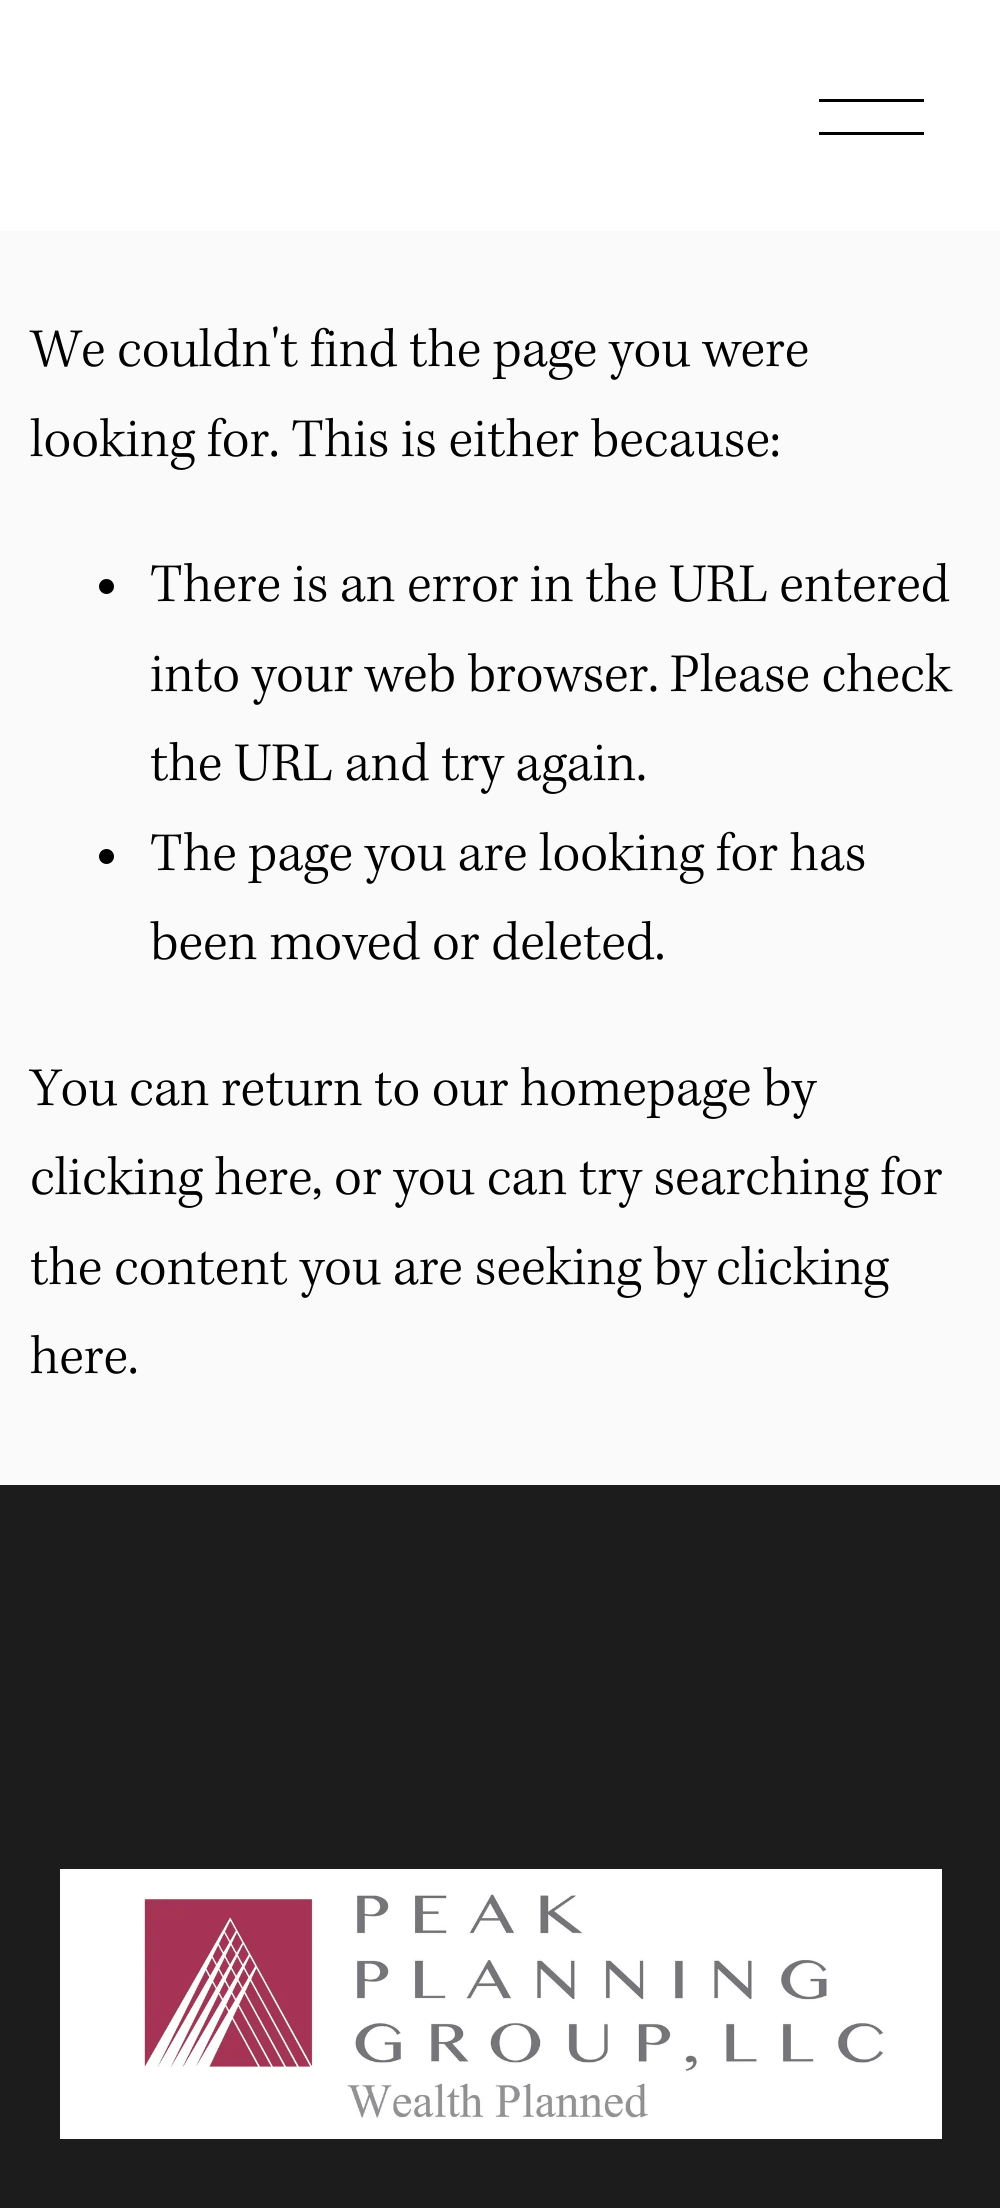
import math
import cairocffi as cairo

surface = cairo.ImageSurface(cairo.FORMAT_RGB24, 1000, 2208)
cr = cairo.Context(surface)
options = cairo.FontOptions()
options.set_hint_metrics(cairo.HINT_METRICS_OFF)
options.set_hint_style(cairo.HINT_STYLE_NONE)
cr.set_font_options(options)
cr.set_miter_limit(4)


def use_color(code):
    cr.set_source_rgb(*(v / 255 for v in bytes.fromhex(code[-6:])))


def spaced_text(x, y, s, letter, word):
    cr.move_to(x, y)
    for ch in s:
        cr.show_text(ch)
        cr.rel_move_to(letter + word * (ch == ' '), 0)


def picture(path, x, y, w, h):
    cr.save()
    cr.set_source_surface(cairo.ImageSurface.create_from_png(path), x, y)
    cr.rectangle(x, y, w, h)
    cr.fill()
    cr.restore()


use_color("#fafafa")
cr.paint()
use_color("#ffffff")
cr.rectangle(0, 0, 1000, 231)
cr.fill()
use_color("#000000")
cr.rectangle(819, 99, 105, 3)
cr.fill()
cr.rectangle(819, 132, 105, 3)
cr.fill()
cr.select_font_face("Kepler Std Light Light")
cr.set_font_size(56)
spaced_text(30, 366, "We couldn't find the page you were", 0, -0.25)
cr.move_to(30, 456)
cr.show_text("looking for. This is either because:")
cr.new_path()
cr.arc(106.5, 586.5, 7.5, 0, 2 * math.pi)
cr.fill()
spaced_text(150, 601, "There is an error in the URL entered", 0, -0.25)
spaced_text(150, 691, "into your web browser. Please check", 0, -0.25)
cr.move_to(150, 780)
cr.show_text("the URL and try again.")
cr.new_path()
cr.arc(106.5, 856.5, 7.5, 0, 2 * math.pi)
cr.fill()
spaced_text(150, 870, "The page you are looking for has", 0, -0.25)
cr.move_to(150, 959)
cr.show_text("been moved or deleted.")
spaced_text(30, 1105, "You can return to our homepage by", 0, -0.25)
cr.move_to(30, 1194)
cr.show_text("clicking here")
cr.move_to(312, 1194)
cr.show_text(", or you can try searching for")
cr.move_to(30, 1284)
cr.show_text("the content you are seeking by")
cr.move_to(716, 1284)
cr.show_text("clicking")
cr.move_to(30, 1373)
cr.show_text("here.")
use_color("#1c1c1c")
cr.rectangle(0, 1485, 1000, 723)
cr.fill()
picture("img1.png", 60, 1869, 882, 270)
surface.write_to_png("result.png")
